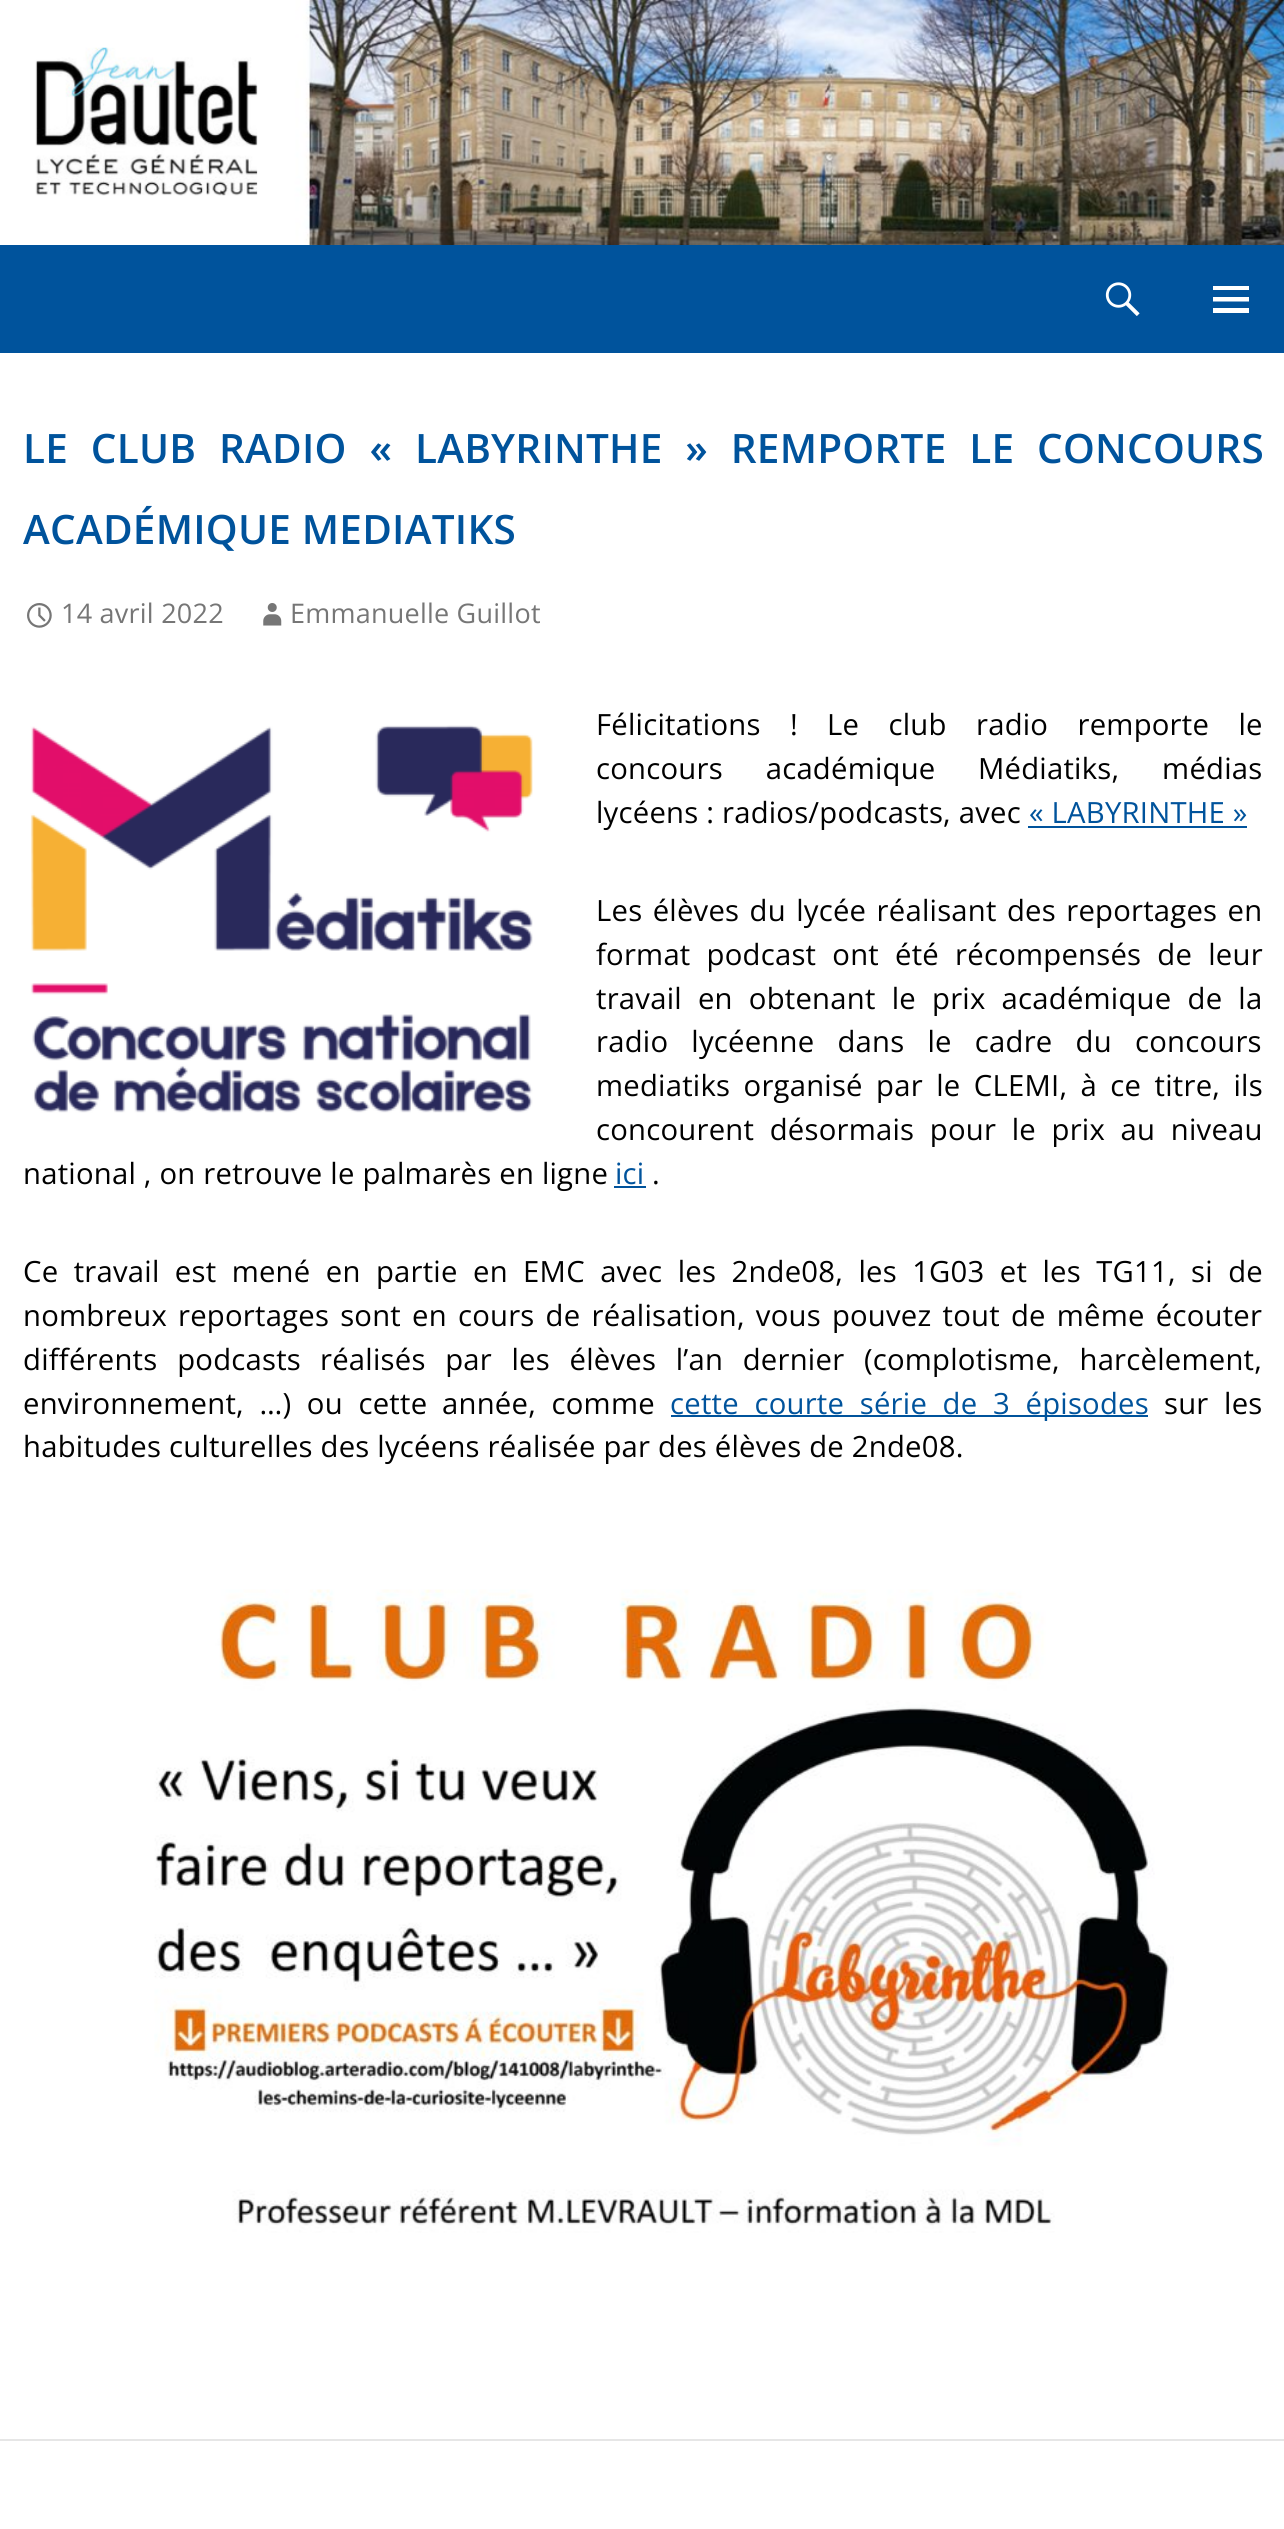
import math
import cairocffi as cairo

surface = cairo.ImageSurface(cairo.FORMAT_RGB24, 1284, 2529)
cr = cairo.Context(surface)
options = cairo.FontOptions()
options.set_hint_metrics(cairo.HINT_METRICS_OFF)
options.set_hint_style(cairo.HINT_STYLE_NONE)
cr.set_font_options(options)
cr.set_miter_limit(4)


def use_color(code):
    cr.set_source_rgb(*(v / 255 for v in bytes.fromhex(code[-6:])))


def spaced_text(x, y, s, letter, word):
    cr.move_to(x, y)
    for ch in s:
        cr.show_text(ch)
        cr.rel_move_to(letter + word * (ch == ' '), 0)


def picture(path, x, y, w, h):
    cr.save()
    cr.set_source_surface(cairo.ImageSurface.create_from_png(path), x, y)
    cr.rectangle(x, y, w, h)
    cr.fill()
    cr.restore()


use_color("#ffffff")
cr.paint()
picture("img1.png", 35, 0, 1249, 245)
use_color("#00539c")
cr.rectangle(0, 245, 1284, 108)
cr.fill()
picture("img2.png", 1105, 282, 35, 34)
use_color("#ffffff")
cr.new_path()
cr.move_to(1213, 313)
cr.line_to(1213, 308)
cr.line_to(1249, 308)
cr.line_to(1249, 313)
cr.close_path()
cr.move_to(1213, 286)
cr.line_to(1249, 286)
cr.line_to(1249, 290)
cr.line_to(1213, 290)
cr.close_path()
cr.move_to(1213, 301.5)
cr.line_to(1213, 297)
cr.line_to(1249, 297)
cr.line_to(1249, 301.5)
cr.close_path()
cr.fill()
cr.select_font_face("Open Sans SemiBold")
cr.set_font_size(40.5)
use_color("#00539c")
spaced_text(23, 463, "LE CLUB RADIO « LABYRINTHE » REMPORTE LE CONCOURS", 0.23, 12)
spaced_text(23, 544, "ACADÉMIQUE MEDIATIKS", 0.23, 0)
picture("img3.png", 27, 603, 25, 25)
cr.select_font_face("Open Sans")
cr.set_font_size(27)
use_color("#767676")
spaced_text(61, 623, "14 avril 2022", 0.23, 0)
picture("img4.png", 263, 603, 19, 23)
spaced_text(290, 623, "Emmanuelle Guillot", 0.23, 0)
picture("img5.png", 30, 725, 503, 388)
cr.set_font_size(29.25)
use_color("#000000")
spaced_text(596, 735, "Félicitations !", 0.23, 21.5)
spaced_text(827, 735, "Le club radio remporte le", 0.23, 21.5)
spaced_text(596, 779, "concours académique", 0.23, 35)
spaced_text(978, 779, "Médiatiks, médias", 0.23, 35)
spaced_text(596, 823, "lycéens : radios/podcasts, avec", 0.23, 0)
use_color("#00539c")
spaced_text(1029, 823, "« LABYRINTHE »", 0.23, 0)
cr.rectangle(1028, 826, 219, 2)
cr.fill()
use_color("#000000")
spaced_text(596, 921, "Les élèves du lycée réalisant des reportages en", 0.23, 2.5)
spaced_text(596, 965, "format podcast ont été récompensés de leur", 0.23, 8.25)
spaced_text(596, 1009, "travail en obtenant le prix académique de la", 0.23, 8.25)
spaced_text(596, 1052, "radio lycéenne dans le cadre du concours", 0.23, 15.25)
spaced_text(596, 1096, "mediatiks organisé par le CLEMI, à ce titre, ils", 0.23, 5.5)
spaced_text(596, 1140, "concourent désormais pour le prix au niveau", 0.23, 7.75)
spaced_text(23, 1184, "national , on retrouve le palmarès en ligne", 0.23, 0)
use_color("#00539c")
spaced_text(615, 1184, "ici", 0.23, 0)
cr.rectangle(614, 1186, 32, 2)
cr.fill()
use_color("#000000")
spaced_text(652, 1184, ".", 0.23, 0)
spaced_text(23, 1282, "Ce travail est mené en partie en EMC avec les 2nde08, les 1G03 et les TG11, si de", 0.23, 7.5)
spaced_text(23, 1326, "nombreux", 0.23, 0)
spaced_text(178, 1326, "reportages sont en cours de réalisation, vous pouvez tout de même écouter", 0.23, 3.25)
spaced_text(23, 1370, "différents podcasts", 0.23, 12)
spaced_text(320, 1370, "réalisés par les élèves l’an dernier (complotisme, harcèlement,", 0.23, 11.75)
spaced_text(23, 1414, "environnement, …) ou cette", 0.23, 7.75)
spaced_text(442, 1414, "année, comme", 0.23, 7.75)
use_color("#00539c")
cr.rectangle(671, 1415, 477, 2)
cr.fill()
spaced_text(670, 1414, "cette courte série de 3 épisodes", 0.23, 7.75)
use_color("#000000")
spaced_text(1164, 1414, "sur les", 0.23, 7.75)
spaced_text(23, 1457, "habitudes culturelles des lycéens réalisée par des élèves de 2nde08.", 0.23, 0)
picture("img6.png", 154, 1589, 1020, 644)
use_color("#e6e6e6")
cr.rectangle(0, 2439, 1284, 2)
cr.fill()
surface.write_to_png("result.png")
